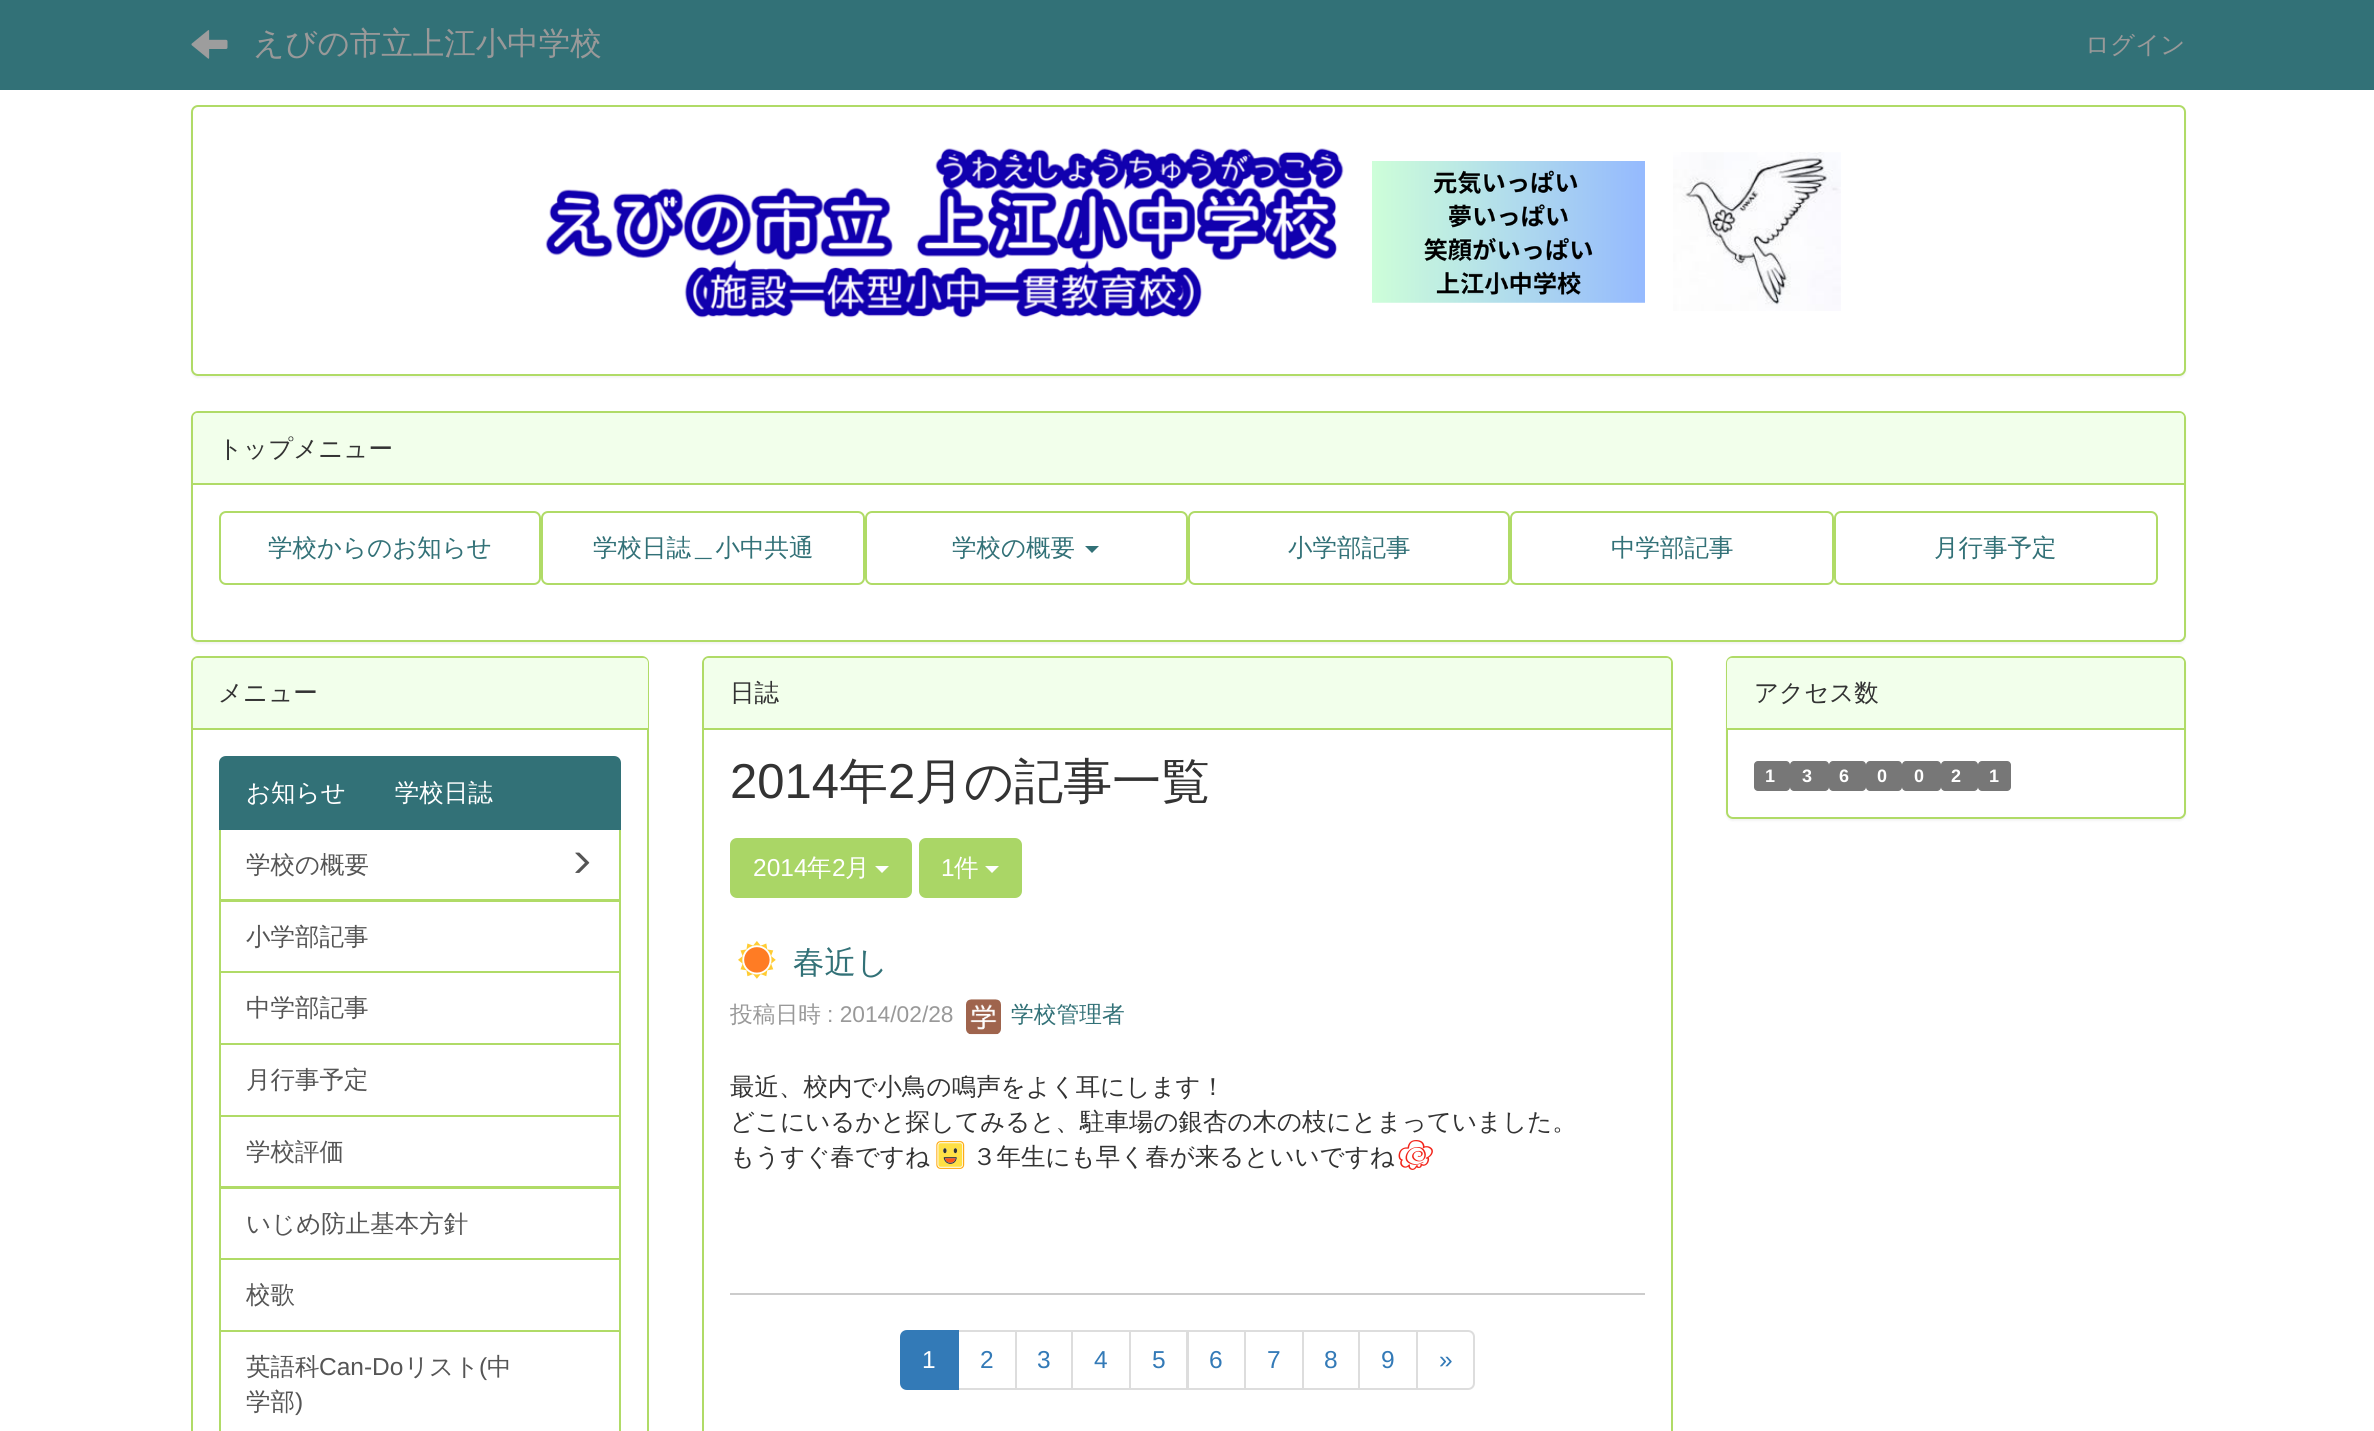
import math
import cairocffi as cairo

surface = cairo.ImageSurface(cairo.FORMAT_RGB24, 2374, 1431)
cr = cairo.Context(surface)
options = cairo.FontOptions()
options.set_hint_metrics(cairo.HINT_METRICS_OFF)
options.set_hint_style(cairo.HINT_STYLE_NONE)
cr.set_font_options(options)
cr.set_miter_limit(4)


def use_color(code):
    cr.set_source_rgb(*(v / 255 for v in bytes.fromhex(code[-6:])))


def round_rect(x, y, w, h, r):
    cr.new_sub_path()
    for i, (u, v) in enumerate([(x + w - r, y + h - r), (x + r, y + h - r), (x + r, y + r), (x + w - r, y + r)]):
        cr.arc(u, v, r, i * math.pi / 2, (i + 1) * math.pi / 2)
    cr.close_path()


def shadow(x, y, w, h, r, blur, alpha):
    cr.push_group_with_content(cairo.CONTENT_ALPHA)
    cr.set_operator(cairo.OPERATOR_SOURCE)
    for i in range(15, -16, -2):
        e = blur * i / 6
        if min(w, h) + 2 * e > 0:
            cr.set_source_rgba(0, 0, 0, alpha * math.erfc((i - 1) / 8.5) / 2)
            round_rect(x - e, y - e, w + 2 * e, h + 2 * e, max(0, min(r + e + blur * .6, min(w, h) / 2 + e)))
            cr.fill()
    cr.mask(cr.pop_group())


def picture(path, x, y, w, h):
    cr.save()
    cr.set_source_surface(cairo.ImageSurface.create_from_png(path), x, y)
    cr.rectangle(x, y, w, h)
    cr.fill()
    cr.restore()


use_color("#ffffff")
cr.paint()
use_color("#327177")
cr.rectangle(0, 0, 2374, 90)
cr.fill()
picture("img1.png", 191, 30, 37, 29)
cr.select_font_face("WenQuanYi Zen Hei Medium")
cr.set_font_size(31.5)
use_color("#999999")
cr.move_to(253, 54)
cr.show_text("えびの市立上江小中学校")
cr.set_font_size(24.5)
cr.move_to(2085, 53)
cr.show_text("ログイン")
use_color("#000000")
shadow(191, 107, 1995, 271, 7, 1, 0.05)
use_color("#ffffff")
round_rect(192, 106, 1993, 269, 6)
cr.fill_preserve()
use_color("#b0db67")
cr.stroke()
picture("img2.png", 545, 148, 799, 170)
picture("img3.png", 1372, 161, 273, 142)
picture("img4.png", 1673, 152, 168, 159)
use_color("#000000")
shadow(191, 413, 1995, 231, 7, 1, 0.05)
use_color("#ffffff")
round_rect(192, 412, 1993, 229, 6)
cr.fill_preserve()
use_color("#b0db67")
cr.stroke()
use_color("#f2ffeb")
cr.new_path()
cr.move_to(198, 413)
cr.line_to(2179, 413)
cr.curve_to(2182, 413, 2184, 415, 2184, 418)
cr.line_to(2184, 485)
cr.line_to(193, 485)
cr.line_to(193, 418)
cr.curve_to(193, 415, 195, 413, 198, 413)
cr.close_path()
cr.fill()
use_color("#b0db67")
cr.rectangle(193, 483, 1991, 2)
cr.fill()
use_color("#333333")
cr.move_to(218, 457)
cr.show_text("トップメニュー")
round_rect(220, 512, 320, 72, 6)
use_color("#b0db67")
cr.stroke()
use_color("#327177")
cr.move_to(268, 556)
cr.show_text("学校からのお知らせ")
round_rect(542, 512, 322, 72, 6)
use_color("#b0db67")
cr.stroke()
use_color("#327177")
cr.move_to(593, 556)
cr.show_text("学校日誌＿小中共通")
round_rect(866, 512, 321, 72, 6)
use_color("#b0db67")
cr.stroke()
use_color("#327177")
cr.move_to(952, 556)
cr.show_text("学校の概要")
cr.new_path()
cr.move_to(1085, 546)
cr.line_to(1099, 546)
cr.line_to(1092, 553)
cr.close_path()
cr.fill()
round_rect(1189, 512, 320, 72, 6)
use_color("#b0db67")
cr.stroke()
use_color("#327177")
cr.move_to(1288, 556)
cr.show_text("小学部記事")
round_rect(1511, 512, 322, 72, 6)
use_color("#b0db67")
cr.stroke()
use_color("#327177")
cr.move_to(1611, 556)
cr.show_text("中学部記事")
round_rect(1835, 512, 322, 72, 6)
use_color("#b0db67")
cr.stroke()
use_color("#327177")
cr.move_to(1934, 556)
cr.show_text("月行事予定")
round_rect(192, 657, 456, 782, 6)
use_color("#b0db67")
cr.stroke()
use_color("#f2ffeb")
cr.new_path()
cr.move_to(198, 658)
cr.line_to(643, 658)
cr.curve_to(646, 658, 648, 660, 648, 663)
cr.line_to(648, 730)
cr.line_to(193, 730)
cr.line_to(193, 663)
cr.curve_to(193, 660, 195, 658, 198, 658)
cr.close_path()
cr.fill()
use_color("#b0db67")
cr.rectangle(193, 728, 455, 2)
cr.fill()
use_color("#333333")
cr.move_to(218, 701)
cr.show_text("メニュー")
cr.rectangle(220, 829, 400, 71)
use_color("#b0db67")
cr.stroke()
use_color("#327177")
cr.new_path()
cr.move_to(226, 757)
cr.line_to(614, 757)
cr.curve_to(617.5, 757, 620, 759.5, 620, 763)
cr.line_to(620, 829)
cr.line_to(220, 829)
cr.line_to(220, 763)
cr.curve_to(220, 759.5, 222.5, 757, 226, 757)
cr.close_path()
cr.fill_preserve()
cr.stroke()
use_color("#ffffff")
cr.move_to(246, 801)
cr.show_text("お知らせ　　学校日誌")
use_color("#555555")
cr.move_to(246, 873)
cr.show_text("学校の概要")
picture("img5.png", 575, 852, 15, 21)
cr.rectangle(220, 901, 400, 71)
use_color("#b0db67")
cr.stroke()
use_color("#555555")
cr.move_to(246, 945)
cr.show_text("小学部記事")
cr.rectangle(220, 972, 400, 72)
use_color("#b0db67")
cr.stroke()
use_color("#555555")
cr.move_to(246, 1016)
cr.show_text("中学部記事")
cr.rectangle(220, 1044, 400, 72)
use_color("#b0db67")
cr.stroke()
use_color("#555555")
cr.move_to(246, 1088)
cr.show_text("月行事予定")
cr.rectangle(220, 1116, 400, 71)
use_color("#b0db67")
cr.stroke()
use_color("#555555")
cr.move_to(246, 1160)
cr.show_text("学校評価")
cr.rectangle(220, 1188, 400, 71)
use_color("#b0db67")
cr.stroke()
use_color("#555555")
cr.move_to(246, 1232)
cr.show_text("いじめ防止基本方針")
cr.rectangle(220, 1259, 400, 72)
use_color("#b0db67")
cr.stroke()
use_color("#555555")
cr.move_to(246, 1303)
cr.show_text("校歌")
cr.rectangle(220, 1331, 400, 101)
use_color("#b0db67")
cr.stroke()
use_color("#555555")
cr.move_to(246, 1375)
cr.show_text("英語科")
cr.select_font_face("Liberation Sans")
cr.move_to(319, 1375)
cr.show_text("Can-Do")
cr.select_font_face("WenQuanYi Zen Hei Medium")
cr.move_to(404, 1375)
cr.show_text("リスト")
cr.select_font_face("Liberation Sans")
cr.move_to(479, 1375)
cr.show_text("(")
cr.select_font_face("WenQuanYi Zen Hei Medium")
cr.move_to(487, 1375)
cr.show_text("中")
cr.move_to(246, 1410)
cr.show_text("学部")
cr.select_font_face("Liberation Sans")
cr.move_to(295, 1410)
cr.show_text(")")
round_rect(703, 657, 969, 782, 6)
use_color("#b0db67")
cr.stroke()
use_color("#f2ffeb")
cr.new_path()
cr.move_to(709, 658)
cr.line_to(1666, 658)
cr.curve_to(1669, 658, 1671, 660, 1671, 663)
cr.line_to(1671, 730)
cr.line_to(704, 730)
cr.line_to(704, 663)
cr.curve_to(704, 660, 706, 658, 709, 658)
cr.close_path()
cr.fill()
use_color("#b0db67")
cr.rectangle(704, 728, 967, 2)
cr.fill()
cr.select_font_face("WenQuanYi Zen Hei Medium")
use_color("#333333")
cr.move_to(730, 701)
cr.show_text("日誌")
cr.select_font_face("Liberation Sans")
cr.set_font_size(49)
cr.move_to(730, 798)
cr.show_text("2014")
cr.select_font_face("WenQuanYi Zen Hei Medium")
cr.move_to(839, 798)
cr.show_text("年")
cr.select_font_face("Liberation Sans")
cr.move_to(888, 798)
cr.show_text("2")
cr.select_font_face("WenQuanYi Zen Hei Medium")
cr.move_to(915, 798)
cr.show_text("月の記事一覧")
use_color("#aad666")
round_rect(731, 839, 180, 58, 6)
cr.fill_preserve()
cr.stroke()
cr.select_font_face("Liberation Sans")
cr.set_font_size(24.5)
use_color("#ffffff")
cr.move_to(753, 876)
cr.show_text("2014")
cr.select_font_face("WenQuanYi Zen Hei Medium")
cr.move_to(807, 876)
cr.show_text("年")
cr.select_font_face("Liberation Sans")
cr.move_to(832, 876)
cr.show_text("2")
cr.select_font_face("WenQuanYi Zen Hei Medium")
cr.move_to(845, 876)
cr.show_text("月")
cr.new_path()
cr.move_to(875, 866)
cr.line_to(889, 866)
cr.line_to(882, 873)
cr.close_path()
cr.fill()
use_color("#aad666")
round_rect(920, 839, 101, 58, 6)
cr.fill_preserve()
cr.stroke()
cr.select_font_face("Liberation Sans")
use_color("#ffffff")
cr.move_to(941, 876)
cr.show_text("1")
cr.select_font_face("WenQuanYi Zen Hei Medium")
cr.move_to(954, 876)
cr.show_text("件")
cr.new_path()
cr.move_to(985, 866)
cr.line_to(999, 866)
cr.line_to(992, 873)
cr.close_path()
cr.fill()
use_color("#cccccc")
cr.rectangle(730, 1293, 915, 2)
cr.fill()
picture("img6.png", 738, 941, 38, 38)
cr.set_font_size(31.5)
use_color("#327177")
cr.move_to(793, 973)
cr.show_text("春近し")
cr.set_font_size(22.75)
use_color("#999999")
cr.move_to(730, 1022)
cr.show_text("投稿日時")
cr.select_font_face("Liberation Sans")
cr.move_to(827, 1022)
cr.show_text(": 2014/02/28")
picture("img7.png", 966, 999, 35, 36)
cr.select_font_face("WenQuanYi Zen Hei Medium")
use_color("#327177")
cr.move_to(1011, 1022)
cr.show_text("学校管理者")
cr.set_font_size(24.5)
use_color("#333333")
cr.move_to(730, 1095)
cr.show_text("最近、校内で小鳥の鳴声をよく耳にします！")
cr.move_to(730, 1130)
cr.show_text("どこにいるかと探してみると、駐車場の銀杏の木の枝にとまっていました。")
cr.move_to(730, 1165)
cr.show_text("もうすぐ春ですね")
picture("img8.png", 936, 1141, 29, 28)
cr.move_to(972, 1165)
cr.show_text("３年生にも早く春が来るといいですね")
picture("img9.png", 1398, 1140, 35, 30)
cr.rectangle(958, 1331, 58, 58)
use_color("#dddddd")
cr.stroke()
use_color("#337ab7")
cr.new_path()
cr.move_to(907, 1331)
cr.line_to(958, 1331)
cr.line_to(958, 1389)
cr.line_to(907, 1389)
cr.curve_to(903.5, 1389, 901, 1386.5, 901, 1383)
cr.line_to(901, 1337)
cr.curve_to(901, 1333.5, 903.5, 1331, 907, 1331)
cr.close_path()
cr.fill_preserve()
cr.stroke()
cr.select_font_face("Liberation Sans")
use_color("#ffffff")
cr.move_to(922, 1368)
cr.show_text("1")
use_color("#337ab7")
cr.move_to(980, 1368)
cr.show_text("2")
cr.rectangle(1016, 1331, 56, 58)
use_color("#dddddd")
cr.stroke()
use_color("#337ab7")
cr.move_to(1037, 1368)
cr.show_text("3")
cr.rectangle(1072, 1331, 58, 58)
use_color("#dddddd")
cr.stroke()
use_color("#337ab7")
cr.move_to(1094, 1368)
cr.show_text("4")
cr.rectangle(1130, 1331, 57, 58)
use_color("#dddddd")
cr.stroke()
use_color("#337ab7")
cr.move_to(1152, 1368)
cr.show_text("5")
cr.rectangle(1188, 1331, 57, 58)
use_color("#dddddd")
cr.stroke()
use_color("#337ab7")
cr.move_to(1209, 1368)
cr.show_text("6")
cr.rectangle(1245, 1331, 58, 58)
use_color("#dddddd")
cr.stroke()
use_color("#337ab7")
cr.move_to(1267, 1368)
cr.show_text("7")
cr.rectangle(1303, 1331, 56, 58)
use_color("#dddddd")
cr.stroke()
use_color("#337ab7")
cr.move_to(1324, 1368)
cr.show_text("8")
cr.rectangle(1359, 1331, 58, 58)
use_color("#dddddd")
cr.stroke()
use_color("#337ab7")
cr.move_to(1381, 1368)
cr.show_text("9")
use_color("#ffffff")
cr.new_path()
cr.move_to(1417, 1331)
cr.line_to(1468, 1331)
cr.curve_to(1471.5, 1331, 1474, 1333.5, 1474, 1337)
cr.line_to(1474, 1383)
cr.curve_to(1474, 1386.5, 1471.5, 1389, 1468, 1389)
cr.line_to(1417, 1389)
cr.close_path()
cr.fill_preserve()
use_color("#dddddd")
cr.stroke()
use_color("#337ab7")
cr.move_to(1439, 1368)
cr.show_text("»")
use_color("#000000")
shadow(1726, 658, 460, 163, 7, 1, 0.05)
use_color("#ffffff")
round_rect(1727, 657, 458, 161, 6)
cr.fill_preserve()
use_color("#b0db67")
cr.stroke()
use_color("#f2ffeb")
cr.new_path()
cr.move_to(1732, 658)
cr.line_to(2179, 658)
cr.curve_to(2182, 658, 2184, 660, 2184, 663)
cr.line_to(2184, 730)
cr.line_to(1727, 730)
cr.line_to(1727, 663)
cr.curve_to(1727, 660, 1729, 658, 1732, 658)
cr.close_path()
cr.fill()
use_color("#b0db67")
cr.rectangle(1727, 728, 457, 2)
cr.fill()
cr.select_font_face("WenQuanYi Zen Hei Medium")
use_color("#333333")
cr.move_to(1754, 701)
cr.show_text("アクセス数")
use_color("#777777")
round_rect(1754, 761, 36, 30, 4)
cr.fill()
cr.select_font_face("Liberation Sans", cairo.FONT_SLANT_NORMAL, cairo.FONT_WEIGHT_BOLD)
cr.set_font_size(18)
use_color("#ffffff")
cr.move_to(1765, 782)
cr.show_text("1")
use_color("#777777")
round_rect(1790, 761, 39, 30, 4)
cr.fill()
use_color("#ffffff")
cr.move_to(1802, 782)
cr.show_text("3")
use_color("#777777")
round_rect(1829, 761, 37, 30, 4)
cr.fill()
use_color("#ffffff")
cr.move_to(1839, 782)
cr.show_text("6")
use_color("#777777")
round_rect(1866, 761, 36, 30, 4)
cr.fill()
use_color("#ffffff")
cr.move_to(1877, 782)
cr.show_text("0")
use_color("#777777")
round_rect(1902, 761, 39, 30, 4)
cr.fill()
use_color("#ffffff")
cr.move_to(1914, 782)
cr.show_text("0")
use_color("#777777")
round_rect(1941, 761, 37, 30, 4)
cr.fill()
use_color("#ffffff")
cr.move_to(1951, 782)
cr.show_text("2")
use_color("#777777")
round_rect(1978, 761, 33, 30, 4)
cr.fill()
use_color("#ffffff")
cr.move_to(1989, 782)
cr.show_text("1")
surface.write_to_png("result.png")
